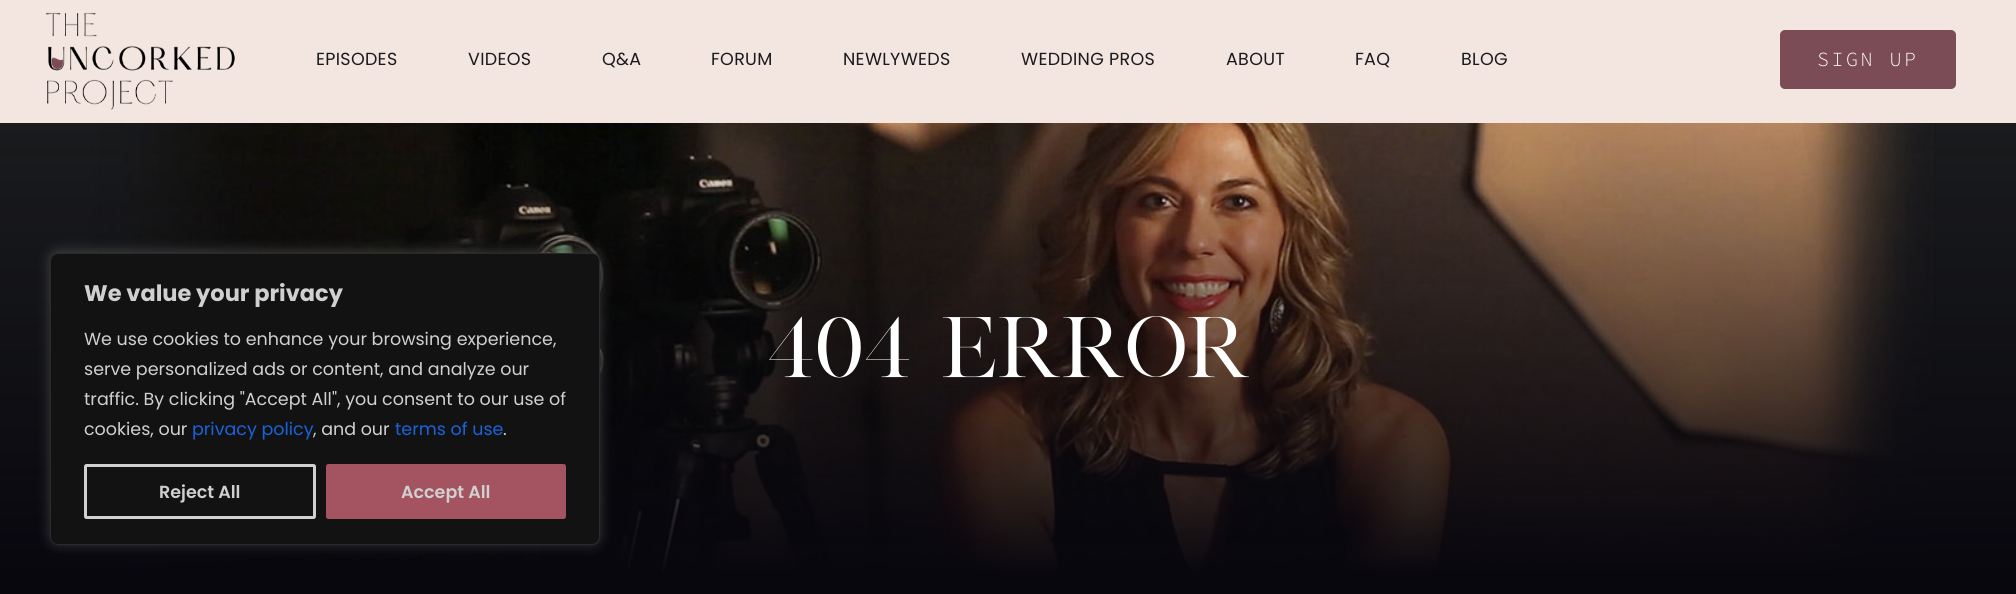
import math
import cairocffi as cairo

surface = cairo.ImageSurface(cairo.FORMAT_RGB24, 2016, 594)
cr = cairo.Context(surface)
options = cairo.FontOptions()
options.set_hint_metrics(cairo.HINT_METRICS_OFF)
options.set_hint_style(cairo.HINT_STYLE_NONE)
cr.set_font_options(options)
cr.set_miter_limit(4)


def use_color(code):
    cr.set_source_rgb(*(v / 255 for v in bytes.fromhex(code[-6:])))


def spaced_text(x, y, s, letter, word):
    cr.move_to(x, y)
    for ch in s:
        cr.show_text(ch)
        cr.rel_move_to(letter + word * (ch == ' '), 0)


def round_rect(x, y, w, h, r):
    cr.new_sub_path()
    for i, (u, v) in enumerate([(x + w - r, y + h - r), (x + r, y + h - r), (x + r, y + r), (x + w - r, y + r)]):
        cr.arc(u, v, r, i * math.pi / 2, (i + 1) * math.pi / 2)
    cr.close_path()


def shadow(x, y, w, h, r, blur, alpha):
    cr.push_group_with_content(cairo.CONTENT_ALPHA)
    cr.set_operator(cairo.OPERATOR_SOURCE)
    for i in range(15, -16, -2):
        e = blur * i / 6
        if min(w, h) + 2 * e > 0:
            cr.set_source_rgba(0, 0, 0, alpha * math.erfc((i - 1) / 8.5) / 2)
            round_rect(x - e, y - e, w + 2 * e, h + 2 * e, max(0, min(r + e + blur * .6, min(w, h) / 2 + e)))
            cr.fill()
    cr.mask(cr.pop_group())


def picture(path, x, y, w, h):
    cr.save()
    cr.set_source_surface(cairo.ImageSurface.create_from_png(path), x, y)
    cr.rectangle(x, y, w, h)
    cr.fill()
    cr.restore()


use_color("#08070e")
cr.paint()
use_color("#f3e5e0")
cr.rectangle(0, 0, 2016, 123)
cr.fill()
picture("img1.png", 46, 12, 189, 98)
cr.select_font_face("Poppins")
cr.set_font_size(17.5)
use_color("#1a1b1d")
spaced_text(316, 65, "EPISODES", 0.3, 0)
spaced_text(468, 65, "VIDEOS", 0.3, 0)
spaced_text(602, 65, "Q&A", 0.3, 0)
spaced_text(711, 65, "FORUM", 0.3, 0)
spaced_text(843, 65, "NEWLYWEDS", 0.3, 0)
spaced_text(1021, 65, "WEDDING PROS", 0.3, 0)
spaced_text(1226, 65, "ABOUT", 0.3, 0)
spaced_text(1355, 65, "FAQ", 0.3, 0)
spaced_text(1461, 65, "BLOG", 0.3, 0)
use_color("#7b4b56")
round_rect(1780, 30, 176, 59, 5)
cr.fill()
cr.select_font_face("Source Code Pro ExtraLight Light")
cr.set_font_size(20)
use_color("#ffffff")
spaced_text(1817, 66, "SIGN UP", 2.5, 0)
picture("img2.png", 0, 123, 2016, 452)
cr.select_font_face("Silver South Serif")
cr.set_font_size(75)
cr.move_to(766, 377)
cr.show_text("404 ERROR")
use_color("#acabab")
shadow(50, 251, 550, 293, 8, 6, 0.3)
use_color("#121212")
round_rect(50.5, 253.5, 549, 291, 7.5)
cr.fill_preserve()
use_color("#2a2a2a")
cr.set_line_width(1)
cr.stroke()
cr.select_font_face("Poppins", cairo.FONT_SLANT_NORMAL, cairo.FONT_WEIGHT_BOLD)
cr.set_font_size(22.5)
use_color("#d0d0d0")
cr.move_to(84, 301)
cr.show_text("We value your privacy")
cr.select_font_face("Poppins")
cr.set_font_size(17.5)
cr.move_to(84, 345)
cr.show_text("We use cookies to enhance your browsing experience,")
cr.move_to(84, 375)
cr.show_text("serve personalized ads or content, and analyze our")
cr.move_to(84, 405)
cr.show_text("traffic. By clicking \"Accept All\", you consent to our use of")
cr.move_to(84, 435)
cr.show_text("cookies, our")
use_color("#1863dc")
cr.move_to(192, 435)
cr.show_text("privacy policy")
use_color("#d0d0d0")
cr.move_to(313, 435)
cr.show_text(", and our")
use_color("#1863dc")
cr.move_to(395, 435)
cr.show_text("terms of use")
use_color("#d0d0d0")
cr.move_to(503, 435)
cr.show_text(".")
round_rect(85.5, 465.5, 229, 52, 1)
cr.set_line_width(3)
cr.stroke()
cr.select_font_face("Poppins SemiBold")
cr.move_to(159, 498)
cr.show_text("Reject All")
use_color("#a45360")
round_rect(327.5, 465.5, 237, 52, 1)
cr.fill_preserve()
cr.stroke()
use_color("#d0d0d0")
cr.move_to(401, 498)
cr.show_text("Accept All")
surface.write_to_png("result.png")
